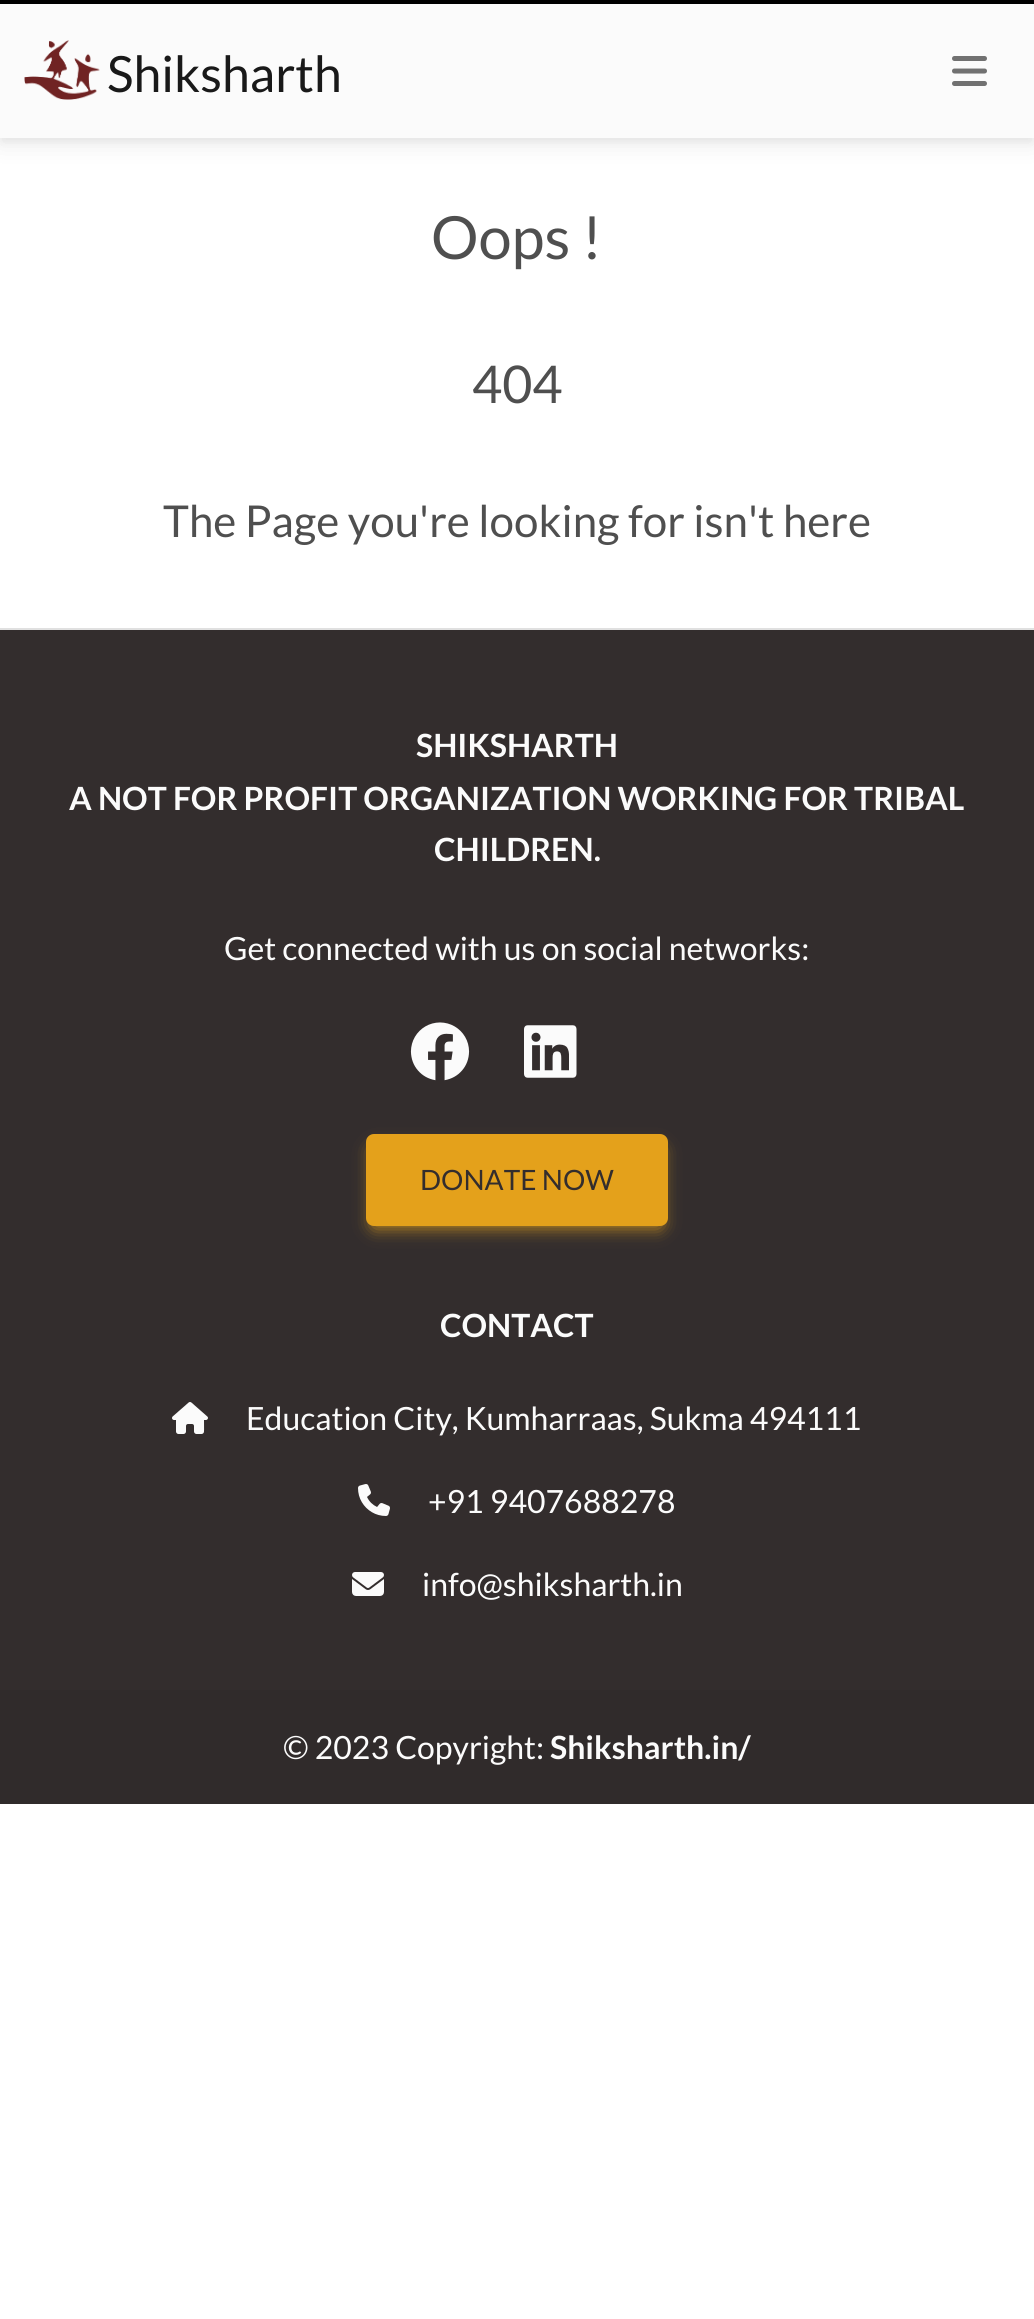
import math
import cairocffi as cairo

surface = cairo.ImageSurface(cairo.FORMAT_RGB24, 1034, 2319)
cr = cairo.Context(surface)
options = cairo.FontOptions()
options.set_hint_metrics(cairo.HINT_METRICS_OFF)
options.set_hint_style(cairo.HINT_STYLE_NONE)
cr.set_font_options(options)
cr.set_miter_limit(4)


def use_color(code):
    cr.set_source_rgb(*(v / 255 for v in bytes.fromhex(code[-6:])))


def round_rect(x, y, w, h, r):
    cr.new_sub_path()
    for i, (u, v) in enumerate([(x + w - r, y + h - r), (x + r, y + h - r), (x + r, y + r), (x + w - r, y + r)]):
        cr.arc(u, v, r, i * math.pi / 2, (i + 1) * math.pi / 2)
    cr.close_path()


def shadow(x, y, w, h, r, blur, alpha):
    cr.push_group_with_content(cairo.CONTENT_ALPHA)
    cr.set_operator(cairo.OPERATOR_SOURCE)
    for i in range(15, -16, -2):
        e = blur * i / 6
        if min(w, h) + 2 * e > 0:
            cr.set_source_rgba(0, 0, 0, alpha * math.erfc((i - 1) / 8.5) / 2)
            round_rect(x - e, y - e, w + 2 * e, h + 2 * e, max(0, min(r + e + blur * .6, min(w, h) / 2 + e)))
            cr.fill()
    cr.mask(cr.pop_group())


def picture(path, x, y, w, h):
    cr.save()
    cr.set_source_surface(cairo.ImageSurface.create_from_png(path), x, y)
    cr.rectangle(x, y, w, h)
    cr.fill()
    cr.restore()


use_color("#ffffff")
cr.paint()
use_color("#000000")
shadow(0, 4, 1034, 138, 0, 4, 0.05)
shadow(0, 8, 1034, 138, 0, 12, 0.07)
use_color("#fbfbfb")
cr.rectangle(0, 4, 1034, 134)
cr.fill()
use_color("#000000")
cr.rectangle(0, 0, 1034, 4)
cr.fill()
picture("img1.png", 24, 40, 76, 60)
cr.select_font_face("Lato")
cr.set_font_size(50)
use_color("#191919")
cr.move_to(107, 92)
cr.show_text("Shiksharth")
picture("img2.png", 952, 56, 35, 30)
cr.set_font_size(59.5)
use_color("#4f4f4f")
cr.move_to(431, 259)
cr.show_text("Oops !")
cr.set_font_size(52)
cr.move_to(472, 403)
cr.show_text("404")
cr.set_font_size(43.9)
cr.move_to(163, 537)
cr.show_text("The Page you're looking for isn't here")
use_color("#332d2d")
cr.rectangle(0, 630, 1034, 1060)
cr.fill()
use_color("#e0e0e0")
cr.rectangle(0, 628, 1034, 2)
cr.fill()
cr.select_font_face("Lato", cairo.FONT_SLANT_NORMAL, cairo.FONT_WEIGHT_BOLD)
cr.set_font_size(32)
use_color("#fbfbfb")
cr.move_to(416, 757)
cr.show_text("SHIKSHARTH")
cr.move_to(69, 810)
cr.show_text("A NOT FOR PROFIT ORGANIZATION WORKING FOR TRIBAL")
cr.move_to(434, 861)
cr.show_text("CHILDREN.")
cr.select_font_face("Lato")
cr.move_to(224, 960)
cr.show_text("Get connected with us on social networks:")
picture("img3.png", 410, 1022, 60, 59)
picture("img4.png", 524, 1025, 53, 53)
use_color("#e4a11b")
shadow(374, 1150, 286, 76, 0, 9, 1)
use_color("#e4a11b")
round_rect(366, 1134, 302, 92, 8)
cr.fill()
cr.set_font_size(28)
use_color("#332d2d")
cr.move_to(420, 1190)
cr.show_text("DONATE NOW")
cr.select_font_face("Lato", cairo.FONT_SLANT_NORMAL, cairo.FONT_WEIGHT_BOLD)
cr.set_font_size(32)
use_color("#fbfbfb")
cr.move_to(440, 1337)
cr.show_text("CONTACT")
picture("img5.png", 172, 1402, 36, 32)
cr.select_font_face("Lato")
cr.move_to(246, 1430)
cr.show_text("Education City, Kumharraas, Sukma 494111")
picture("img6.png", 358, 1484, 32, 32)
cr.move_to(428, 1513)
cr.show_text("+91 9407688278")
picture("img7.png", 352, 1572, 32, 24)
cr.move_to(422, 1596)
cr.show_text("info@shiksharth.in")
use_color("#302b2b")
cr.rectangle(0, 1690, 1034, 114)
cr.fill()
use_color("#fbfbfb")
cr.move_to(283, 1759)
cr.show_text("© 2023 Copyright:")
cr.select_font_face("Lato", cairo.FONT_SLANT_NORMAL, cairo.FONT_WEIGHT_BOLD)
cr.move_to(550, 1759)
cr.show_text("Shiksharth.in/")
surface.write_to_png("result.png")
